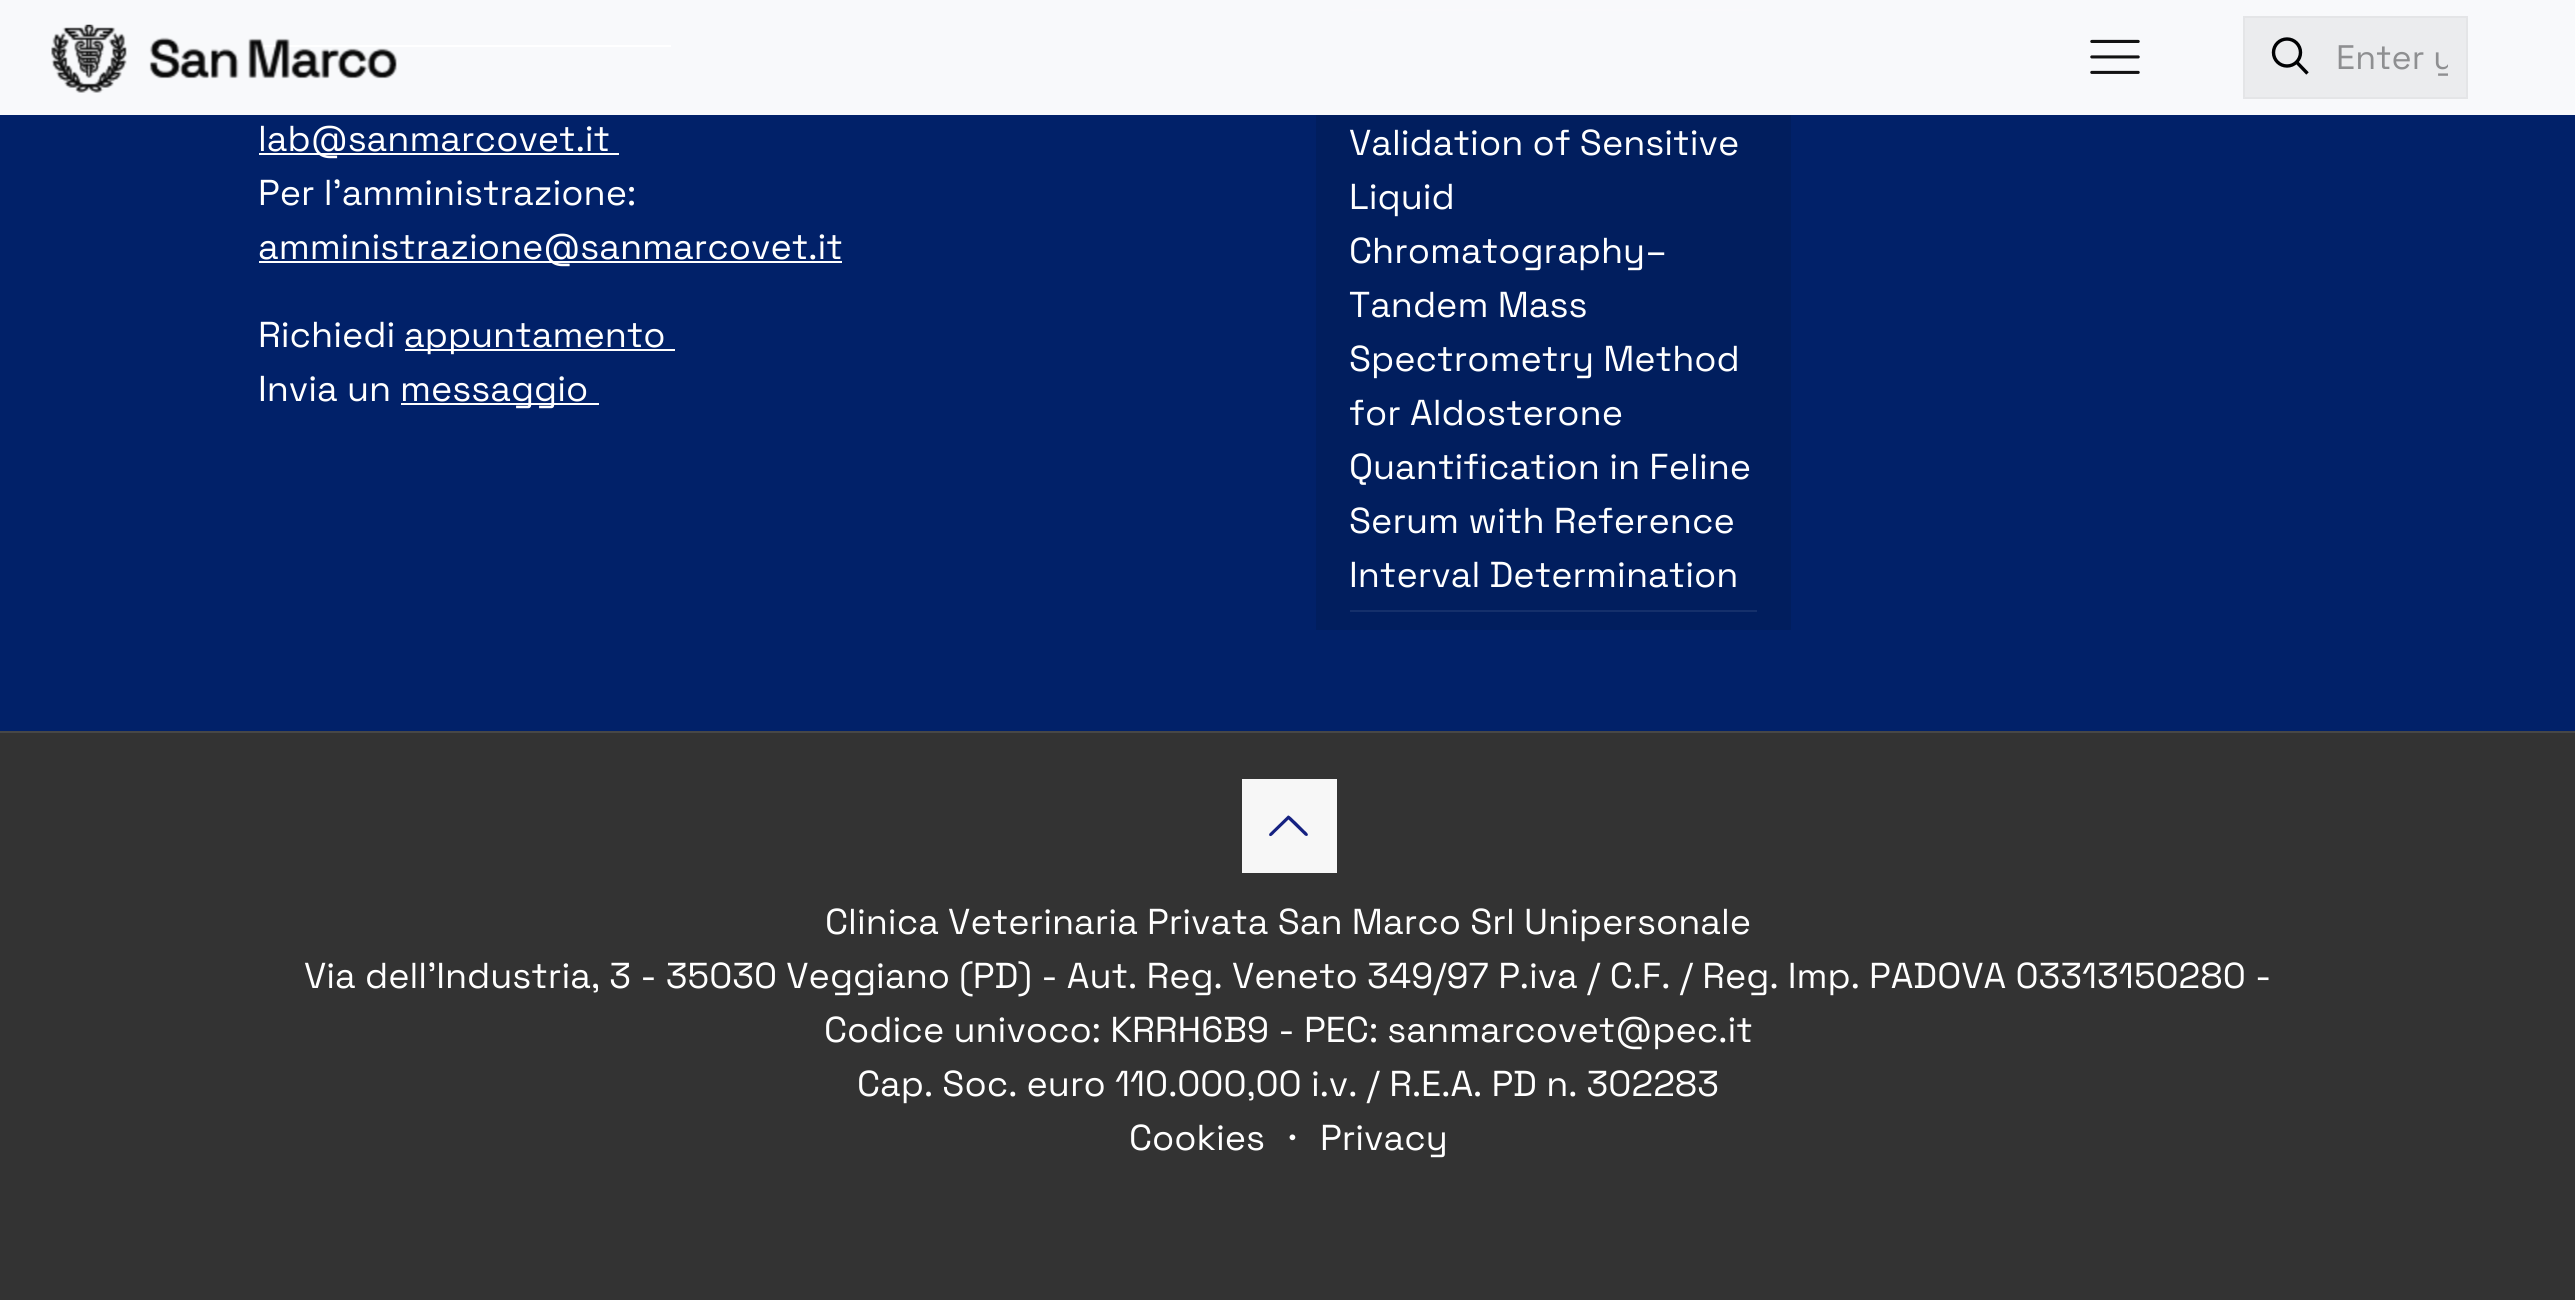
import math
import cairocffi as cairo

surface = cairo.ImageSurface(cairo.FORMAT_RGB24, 2575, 1300)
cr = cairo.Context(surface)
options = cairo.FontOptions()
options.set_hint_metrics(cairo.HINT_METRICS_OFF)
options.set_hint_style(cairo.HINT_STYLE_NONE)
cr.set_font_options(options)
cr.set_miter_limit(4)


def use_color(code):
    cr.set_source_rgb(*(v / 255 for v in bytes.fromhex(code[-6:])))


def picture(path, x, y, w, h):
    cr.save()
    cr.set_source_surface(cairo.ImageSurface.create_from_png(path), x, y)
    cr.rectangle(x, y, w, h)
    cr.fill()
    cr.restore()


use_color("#012169")
cr.paint()
use_color("#ffffff")
cr.rectangle(259, 45, 412, 2)
cr.fill()
use_color("#011e5f")
cr.rectangle(1316, 0, 475, 29)
cr.fill()
use_color("#15306c")
cr.rectangle(1350, 9, 407, 2)
cr.fill()
use_color("#011e5e")
cr.rectangle(1316, 52, 475, 578)
cr.fill()
cr.set_source_rgba(1, 1, 1, 0.97)
cr.rectangle(0, 0, 2575, 115)
cr.fill()
picture("img1.png", 51, 24, 346, 69)
picture("img2.png", 2090, 39, 50, 35)
use_color("#ebecee")
cr.rectangle(2244, 17, 223, 81)
cr.fill_preserve()
use_color("#e4e5e7")
cr.stroke()
cr.arc(2287, 52.5, 13.5, 0, 2 * math.pi)
use_color("#000103")
cr.set_line_width(3.4)
cr.stroke()
cr.new_path()
cr.move_to(2296.5, 62)
cr.line_to(2307.5, 73.5)
cr.stroke()
cr.save()
cr.rectangle(2336, 36, 112, 43)
cr.clip()
cr.select_font_face("Space Grotesk")
cr.set_font_size(34)
use_color("#8e8f91")
cr.move_to(2336, 69)
cr.show_text("Enter y")
cr.restore()
use_color("#ffffff")
cr.rectangle(259, 153, 360, 2)
cr.fill()
cr.select_font_face("Space Grotesk")
cr.set_font_size(36)
cr.move_to(258, 151)
cr.show_text("lab@sanmarcovet.it")
cr.move_to(258, 205)
cr.show_text("Per l’amministrazione:")
cr.rectangle(259, 261, 583, 2)
cr.fill()
cr.move_to(258, 259)
cr.show_text("amministrazione@sanmarcovet.it")
cr.move_to(258, 347)
cr.show_text("Richiedi")
cr.rectangle(405, 349, 270, 2)
cr.fill()
cr.move_to(404, 347)
cr.show_text("appuntamento")
cr.move_to(258, 401)
cr.show_text("Invia un")
cr.rectangle(401, 403, 198, 2)
cr.fill()
cr.move_to(400, 401)
cr.show_text("messaggio")
use_color("#15306b")
cr.rectangle(1350, 610, 407, 2)
cr.fill()
use_color("#ffffff")
cr.move_to(1349, 155)
cr.show_text("Validation of Sensitive")
cr.move_to(1349, 209)
cr.show_text("Liquid")
cr.move_to(1349, 263)
cr.show_text("Chromatography–")
cr.move_to(1349, 317)
cr.show_text("Tandem Mass")
cr.move_to(1349, 371)
cr.show_text("Spectrometry Method")
cr.move_to(1349, 425)
cr.show_text("for Aldosterone")
cr.move_to(1349, 479)
cr.show_text("Quantification in Feline")
cr.move_to(1349, 533)
cr.show_text("Serum with Reference")
cr.move_to(1349, 587)
cr.show_text("Interval Determination")
use_color("#333333")
cr.rectangle(0, 733, 2575, 567)
cr.fill()
use_color("#474747")
cr.rectangle(0, 731, 2575, 2)
cr.fill()
use_color("#f7f7f7")
cr.rectangle(1242, 779, 95, 94)
cr.fill()
use_color("#152181")
cr.new_path()
cr.move_to(1305, 835.5)
cr.line_to(1288.5, 819.5)
cr.line_to(1274.5, 833)
cr.curve_to(1273.5, 834, 1270.5, 838, 1269, 835)
cr.line_to(1269.5, 833.5)
cr.line_to(1288, 815.5)
cr.curve_to(1289.5, 815, 1294.5, 821, 1295.5, 821.5)
cr.line_to(1304.5, 830.5)
cr.curve_to(1304.5, 830.5, 1310.5, 835, 1306.5, 836)
cr.close_path()
cr.fill()
use_color("#ffffff")
cr.move_to(825, 934)
cr.show_text("Clinica Veterinaria Privata San Marco Srl Unipersonale")
cr.move_to(304, 988)
cr.show_text("Via dell’Industria, 3 - 35030 Veggiano (PD) - Aut. Reg. Veneto 349/97 P.iva / C.F. / Reg. Imp. PADOVA 03313150280 -")
cr.move_to(824, 1042)
cr.show_text("Codice univoco: KRRH6B9 - PEC: sanmarcovet@pec.it")
cr.move_to(857, 1096)
cr.show_text("Cap. Soc. euro 110.000,00 i.v. / R.E.A. PD n. 302283")
cr.move_to(1129, 1150)
cr.show_text("Cookies")
cr.select_font_face("WenQuanYi Zen Hei Medium")
cr.move_to(1274, 1150)
cr.show_text("・")
cr.select_font_face("Space Grotesk")
cr.move_to(1320, 1150)
cr.show_text("Privacy")
surface.write_to_png("result.png")
